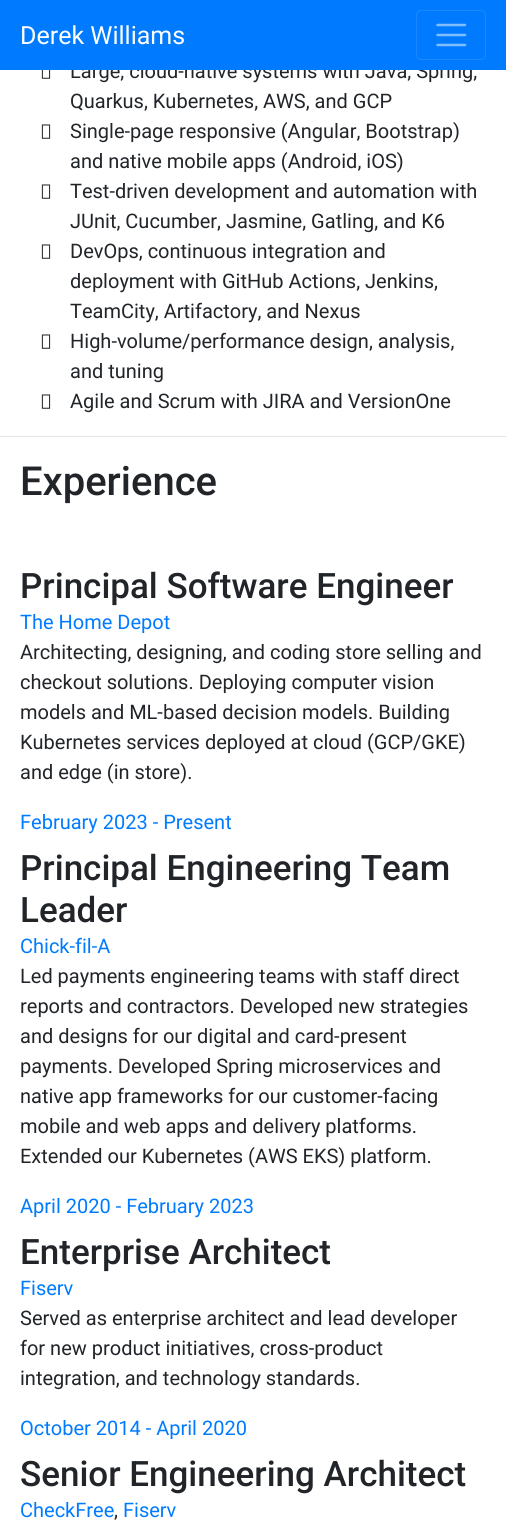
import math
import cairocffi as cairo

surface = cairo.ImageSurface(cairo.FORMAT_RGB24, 506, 1539)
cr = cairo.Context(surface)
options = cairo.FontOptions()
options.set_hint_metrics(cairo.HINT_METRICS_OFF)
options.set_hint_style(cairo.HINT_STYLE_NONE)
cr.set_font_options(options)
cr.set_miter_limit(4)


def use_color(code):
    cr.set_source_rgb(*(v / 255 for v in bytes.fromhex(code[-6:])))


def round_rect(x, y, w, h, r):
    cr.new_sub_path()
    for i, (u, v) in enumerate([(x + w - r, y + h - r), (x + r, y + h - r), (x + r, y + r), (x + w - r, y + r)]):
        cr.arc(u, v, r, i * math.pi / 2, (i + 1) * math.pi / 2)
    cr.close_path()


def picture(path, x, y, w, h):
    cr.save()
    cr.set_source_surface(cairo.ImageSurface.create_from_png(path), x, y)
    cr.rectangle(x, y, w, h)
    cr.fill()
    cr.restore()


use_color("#ffffff")
cr.paint()
cr.select_font_face("Roboto")
cr.set_font_size(20)
use_color("#212529")
cr.move_to(70, 78)
cr.show_text("Large, cloud-native systems with Java, Spring,")
use_color("#007bff")
cr.rectangle(0, 0, 506, 70)
cr.fill()
cr.set_font_size(25)
use_color("#ffffff")
cr.move_to(20, 44)
cr.show_text("Derek Williams")
round_rect(416.5, 10.5, 69, 49, 4.5)
use_color("#1a88ff")
cr.set_line_width(1)
cr.stroke()
cr.new_path()
cr.move_to(437.5, 25)
cr.line_to(465, 25)
cr.move_to(437.5, 35)
cr.line_to(465, 35)
cr.move_to(437.5, 45)
cr.line_to(465, 45)
use_color("#80bdff")
cr.set_line_width(2.5)
cr.set_line_cap(cairo.LINE_CAP_ROUND)
cr.stroke()
picture("img1.png", 41, 70, 10, 9)
cr.set_font_size(20)
use_color("#212529")
cr.move_to(70, 108)
cr.show_text("Quarkus, Kubernetes, AWS, and GCP")
picture("img2.png", 41, 124, 10, 15)
cr.move_to(70, 138)
cr.show_text("Single-page responsive (Angular, Bootstrap)")
cr.move_to(70, 168)
cr.show_text("and native mobile apps (Android, iOS)")
picture("img2.png", 41, 184, 10, 15)
cr.move_to(70, 198)
cr.show_text("Test-driven development and automation with")
cr.move_to(70, 228)
cr.show_text("JUnit, Cucumber, Jasmine, Gatling, and K6")
picture("img2.png", 41, 244, 10, 15)
cr.move_to(70, 258)
cr.show_text("DevOps, continuous integration and")
cr.move_to(70, 288)
cr.show_text("deployment with GitHub Actions, Jenkins,")
cr.move_to(70, 318)
cr.show_text("TeamCity, Artifactory, and Nexus")
picture("img2.png", 41, 334, 10, 15)
cr.move_to(70, 348)
cr.show_text("High-volume/performance design, analysis,")
cr.move_to(70, 378)
cr.show_text("and tuning")
picture("img2.png", 41, 394, 10, 15)
cr.move_to(70, 408)
cr.show_text("Agile and Scrum with JIRA and VersionOne")
use_color("#e6e6e6")
cr.rectangle(0, 436, 506, 1)
cr.fill()
cr.select_font_face("Roboto Medium")
cr.set_font_size(40)
use_color("#212529")
cr.move_to(20, 495)
cr.show_text("Experience")
cr.set_font_size(35)
cr.move_to(20, 598)
cr.show_text("Principal Software Engineer")
cr.select_font_face("Roboto")
cr.set_font_size(20)
use_color("#007bff")
cr.move_to(20, 629)
cr.show_text("The Home Depot")
use_color("#212529")
cr.move_to(20, 659)
cr.show_text("Architecting, designing, and coding store selling and")
cr.move_to(20, 689)
cr.show_text("checkout solutions. Deploying computer vision")
cr.move_to(20, 719)
cr.show_text("models and ML-based decision models. Building")
cr.move_to(20, 749)
cr.show_text("Kubernetes services deployed at cloud (GCP/GKE)")
cr.move_to(20, 779)
cr.show_text("and edge (in store).")
use_color("#007bff")
cr.move_to(20, 829)
cr.show_text("February 2023 - Present")
cr.select_font_face("Roboto Medium")
cr.set_font_size(35)
use_color("#212529")
cr.move_to(20, 880)
cr.show_text("Principal Engineering Team")
cr.move_to(20, 922)
cr.show_text("Leader")
cr.select_font_face("Roboto")
cr.set_font_size(20)
use_color("#007bff")
cr.move_to(20, 953)
cr.show_text("Chick-fil-A")
use_color("#212529")
cr.move_to(20, 983)
cr.show_text("Led payments engineering teams with staff direct")
cr.move_to(20, 1013)
cr.show_text("reports and contractors. Developed new strategies")
cr.move_to(20, 1043)
cr.show_text("and designs for our digital and card-present")
cr.move_to(20, 1073)
cr.show_text("payments. Developed Spring microservices and")
cr.move_to(20, 1103)
cr.show_text("native app frameworks for our customer-facing")
cr.move_to(20, 1133)
cr.show_text("mobile and web apps and delivery platforms.")
cr.move_to(20, 1163)
cr.show_text("Extended our Kubernetes (AWS EKS) platform.")
use_color("#007bff")
cr.move_to(20, 1213)
cr.show_text("April 2020 - February 2023")
cr.select_font_face("Roboto Medium")
cr.set_font_size(35)
use_color("#212529")
cr.move_to(20, 1264)
cr.show_text("Enterprise Architect")
cr.select_font_face("Roboto")
cr.set_font_size(20)
use_color("#007bff")
cr.move_to(20, 1295)
cr.show_text("Fiserv")
use_color("#212529")
cr.move_to(20, 1325)
cr.show_text("Served as enterprise architect and lead developer")
cr.move_to(20, 1355)
cr.show_text("for new product initiatives, cross-product")
cr.move_to(20, 1385)
cr.show_text("integration, and technology standards.")
use_color("#007bff")
cr.move_to(20, 1435)
cr.show_text("October 2014 - April 2020")
cr.select_font_face("Roboto Medium")
cr.set_font_size(35)
use_color("#212529")
cr.move_to(20, 1486)
cr.show_text("Senior Engineering Architect")
cr.select_font_face("Roboto")
cr.set_font_size(20)
use_color("#007bff")
cr.move_to(20, 1517)
cr.show_text("CheckFree")
use_color("#212529")
cr.move_to(114, 1517)
cr.show_text(",")
use_color("#007bff")
cr.move_to(123, 1517)
cr.show_text("Fiserv")
surface.write_to_png("result.png")
